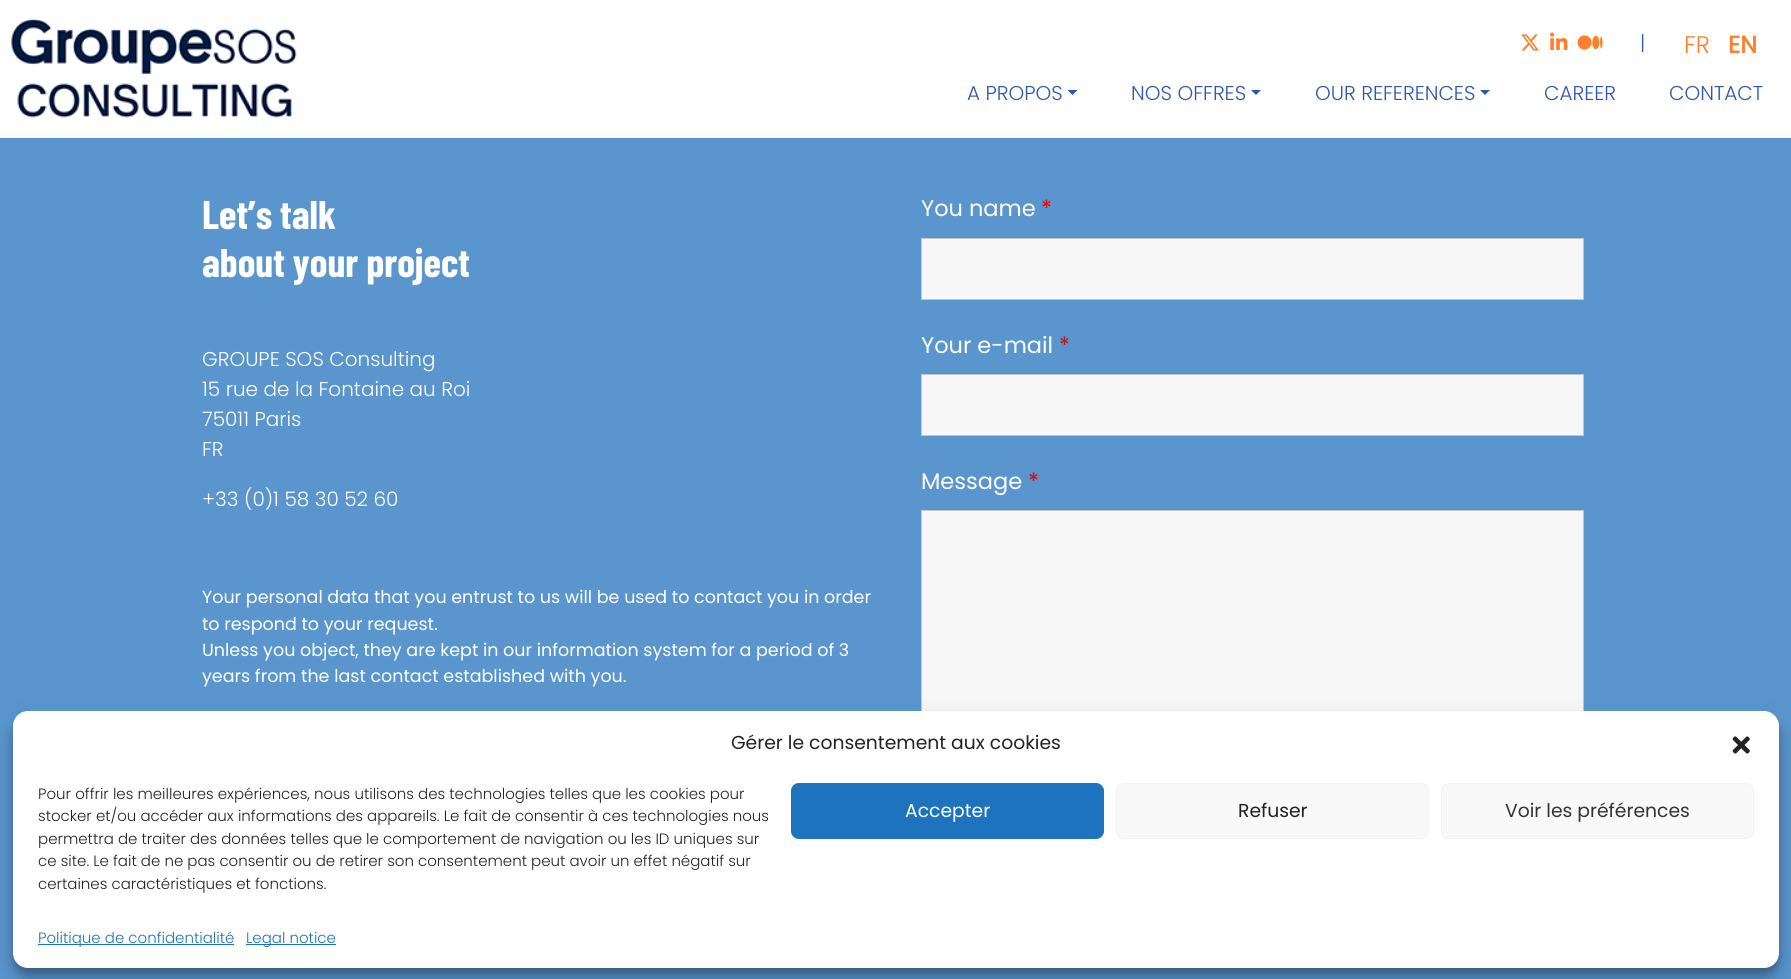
import math
import cairocffi as cairo

surface = cairo.ImageSurface(cairo.FORMAT_RGB24, 1791, 979)
cr = cairo.Context(surface)
options = cairo.FontOptions()
options.set_hint_metrics(cairo.HINT_METRICS_OFF)
options.set_hint_style(cairo.HINT_STYLE_NONE)
cr.set_font_options(options)
cr.set_miter_limit(4)


def use_color(code):
    cr.set_source_rgb(*(v / 255 for v in bytes.fromhex(code[-6:])))


def round_rect(x, y, w, h, r):
    cr.new_sub_path()
    for i, (u, v) in enumerate([(x + w - r, y + h - r), (x + r, y + h - r), (x + r, y + r), (x + w - r, y + r)]):
        cr.arc(u, v, r, i * math.pi / 2, (i + 1) * math.pi / 2)
    cr.close_path()


def shadow(x, y, w, h, r, blur, alpha):
    cr.push_group_with_content(cairo.CONTENT_ALPHA)
    cr.set_operator(cairo.OPERATOR_SOURCE)
    for i in range(15, -16, -2):
        e = blur * i / 6
        if min(w, h) + 2 * e > 0:
            cr.set_source_rgba(0, 0, 0, alpha * math.erfc((i - 1) / 8.5) / 2)
            round_rect(x - e, y - e, w + 2 * e, h + 2 * e, max(0, min(r + e + blur * .6, min(w, h) / 2 + e)))
            cr.fill()
    cr.mask(cr.pop_group())


def picture(path, x, y, w, h):
    cr.save()
    cr.set_source_surface(cairo.ImageSurface.create_from_png(path), x, y)
    cr.rectangle(x, y, w, h)
    cr.fill()
    cr.restore()


use_color("#ffffff")
cr.paint()
picture("img1.png", 11, 18, 286, 100)
picture("img2.png", 1521, 34, 18, 17)
picture("img3.png", 1550, 32, 18, 18)
picture("img4.png", 1577, 35, 26, 15)
cr.select_font_face("Poppins Light")
cr.set_font_size(20)
use_color("#2b56b2")
cr.move_to(1640, 50)
cr.show_text("|")
cr.set_font_size(24)
use_color("#fe7f2d")
cr.move_to(1684, 53)
cr.show_text("FR")
cr.select_font_face("Poppins", cairo.FONT_SLANT_NORMAL, cairo.FONT_WEIGHT_BOLD)
cr.move_to(1728, 53)
cr.show_text("EN")
cr.select_font_face("Poppins Light")
cr.set_font_size(20)
use_color("#2b56b2")
cr.move_to(967, 100)
cr.show_text("A PROPOS")
cr.new_path()
cr.move_to(1067.5, 90)
cr.line_to(1077.5, 90)
cr.line_to(1072.5, 95)
cr.close_path()
cr.fill()
cr.move_to(1131, 100)
cr.show_text("NOS OFFRES")
cr.new_path()
cr.move_to(1251, 90)
cr.line_to(1261, 90)
cr.line_to(1256, 95)
cr.close_path()
cr.fill()
cr.move_to(1315, 100)
cr.show_text("OUR REFERENCES")
cr.new_path()
cr.move_to(1480, 90)
cr.line_to(1490, 90)
cr.line_to(1485, 95)
cr.close_path()
cr.fill()
cr.move_to(1544, 100)
cr.show_text("CAREER")
cr.move_to(1669, 100)
cr.show_text("CONTACT")
use_color("#5a95ce")
cr.rectangle(0, 138, 1791, 841)
cr.fill()
cr.select_font_face("Barlow Condensed", cairo.FONT_SLANT_NORMAL, cairo.FONT_WEIGHT_BOLD)
cr.set_font_size(40)
use_color("#ffffff")
cr.move_to(202, 229)
cr.show_text("Let’s talk")
cr.move_to(202, 277)
cr.show_text("about your project")
cr.select_font_face("Poppins Light")
cr.set_font_size(20)
cr.move_to(202, 366)
cr.show_text("GROUPE SOS Consulting")
cr.move_to(202, 396)
cr.show_text("15 rue de la Fontaine au Roi")
cr.move_to(202, 426)
cr.show_text("75011 Paris")
cr.move_to(202, 456)
cr.show_text("FR")
cr.move_to(202, 506)
cr.show_text("+33 (0)1 58 30 52 60")
cr.select_font_face("Poppins")
cr.set_font_size(17.5)
cr.move_to(202, 603)
cr.show_text("Your personal data that you entrust to us will be used to contact you in order")
cr.move_to(202, 630)
cr.show_text("to respond to your request.")
cr.move_to(202, 656)
cr.show_text("Unless you object, they are kept in our information system for a period of 3")
cr.move_to(202, 682)
cr.show_text("years from the last contact established with you.")
cr.set_font_size(22.5)
cr.move_to(921, 216)
cr.show_text("You name")
use_color("#e80000")
cr.move_to(1041, 216)
cr.show_text("*")
use_color("#f7f7f7")
cr.rectangle(921.5, 238.5, 662, 61)
cr.fill_preserve()
use_color("#c4c4c4")
cr.set_line_width(1)
cr.stroke()
use_color("#ffffff")
cr.move_to(921, 353)
cr.show_text("Your e-mail")
use_color("#e80000")
cr.move_to(1059, 353)
cr.show_text("*")
use_color("#f7f7f7")
cr.rectangle(921.5, 374.5, 662, 61)
cr.fill_preserve()
use_color("#c4c4c4")
cr.stroke()
use_color("#ffffff")
cr.move_to(921, 489)
cr.show_text("Message")
use_color("#e80000")
cr.move_to(1028, 489)
cr.show_text("*")
use_color("#f7f7f7")
cr.rectangle(922, 511, 661, 200)
cr.fill()
cr.rectangle(921.5, 510.5, 662, 249)
use_color("#c4c4c4")
cr.stroke()
use_color("#000000")
shadow(13, 719, 1766, 256, 15, 4, 0.23)
shadow(13, 724, 1766, 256, 15, 12.5, 0.19)
use_color("#ffffff")
round_rect(13, 711, 1766, 257, 15)
cr.fill()
cr.set_font_size(18.75)
use_color("#222222")
cr.move_to(731, 749)
cr.show_text("Gérer le consentement aux cookies")
picture("img5.png", 1732, 736, 18, 18)
cr.select_font_face("Poppins Light")
cr.set_font_size(15)
cr.move_to(38, 799)
cr.show_text("Pour offrir les meilleures expériences, nous utilisons des technologies telles que les cookies pour")
cr.move_to(38, 821)
cr.show_text("stocker et/ou accéder aux informations des appareils. Le fait de consentir à ces technologies nous")
cr.move_to(38, 844)
cr.show_text("permettra de traiter des données telles que le comportement de navigation ou les ID uniques sur")
cr.move_to(38, 866)
cr.show_text("ce site. Le fait de ne pas consentir ou de retirer son consentement peut avoir un effet négatif sur")
cr.move_to(38, 889)
cr.show_text("certaines caractéristiques et fonctions.")
use_color("#1e73be")
round_rect(791.5, 783.5, 312, 55, 7.5)
cr.fill_preserve()
cr.stroke()
cr.select_font_face("Poppins")
cr.set_font_size(18.75)
use_color("#ffffff")
cr.move_to(905, 817)
cr.show_text("Accepter")
use_color("#f9f9f9")
round_rect(1116.5, 783.5, 312, 55, 7.5)
cr.fill_preserve()
use_color("#f2f2f2")
cr.stroke()
use_color("#222222")
cr.move_to(1238, 817)
cr.show_text("Refuser")
use_color("#f9f9f9")
round_rect(1441.5, 783.5, 312, 55, 7.5)
cr.fill_preserve()
use_color("#f2f2f2")
cr.stroke()
use_color("#333333")
cr.move_to(1505, 817)
cr.show_text("Voir les préférences")
use_color("#1e73be")
cr.rectangle(38, 944, 196, 1)
cr.fill()
cr.select_font_face("Poppins Light")
cr.set_font_size(15)
cr.move_to(38, 943)
cr.show_text("Politique de confidentialité")
cr.rectangle(246, 944, 90, 1)
cr.fill()
cr.move_to(246, 943)
cr.show_text("Legal notice")
surface.write_to_png("result.png")
